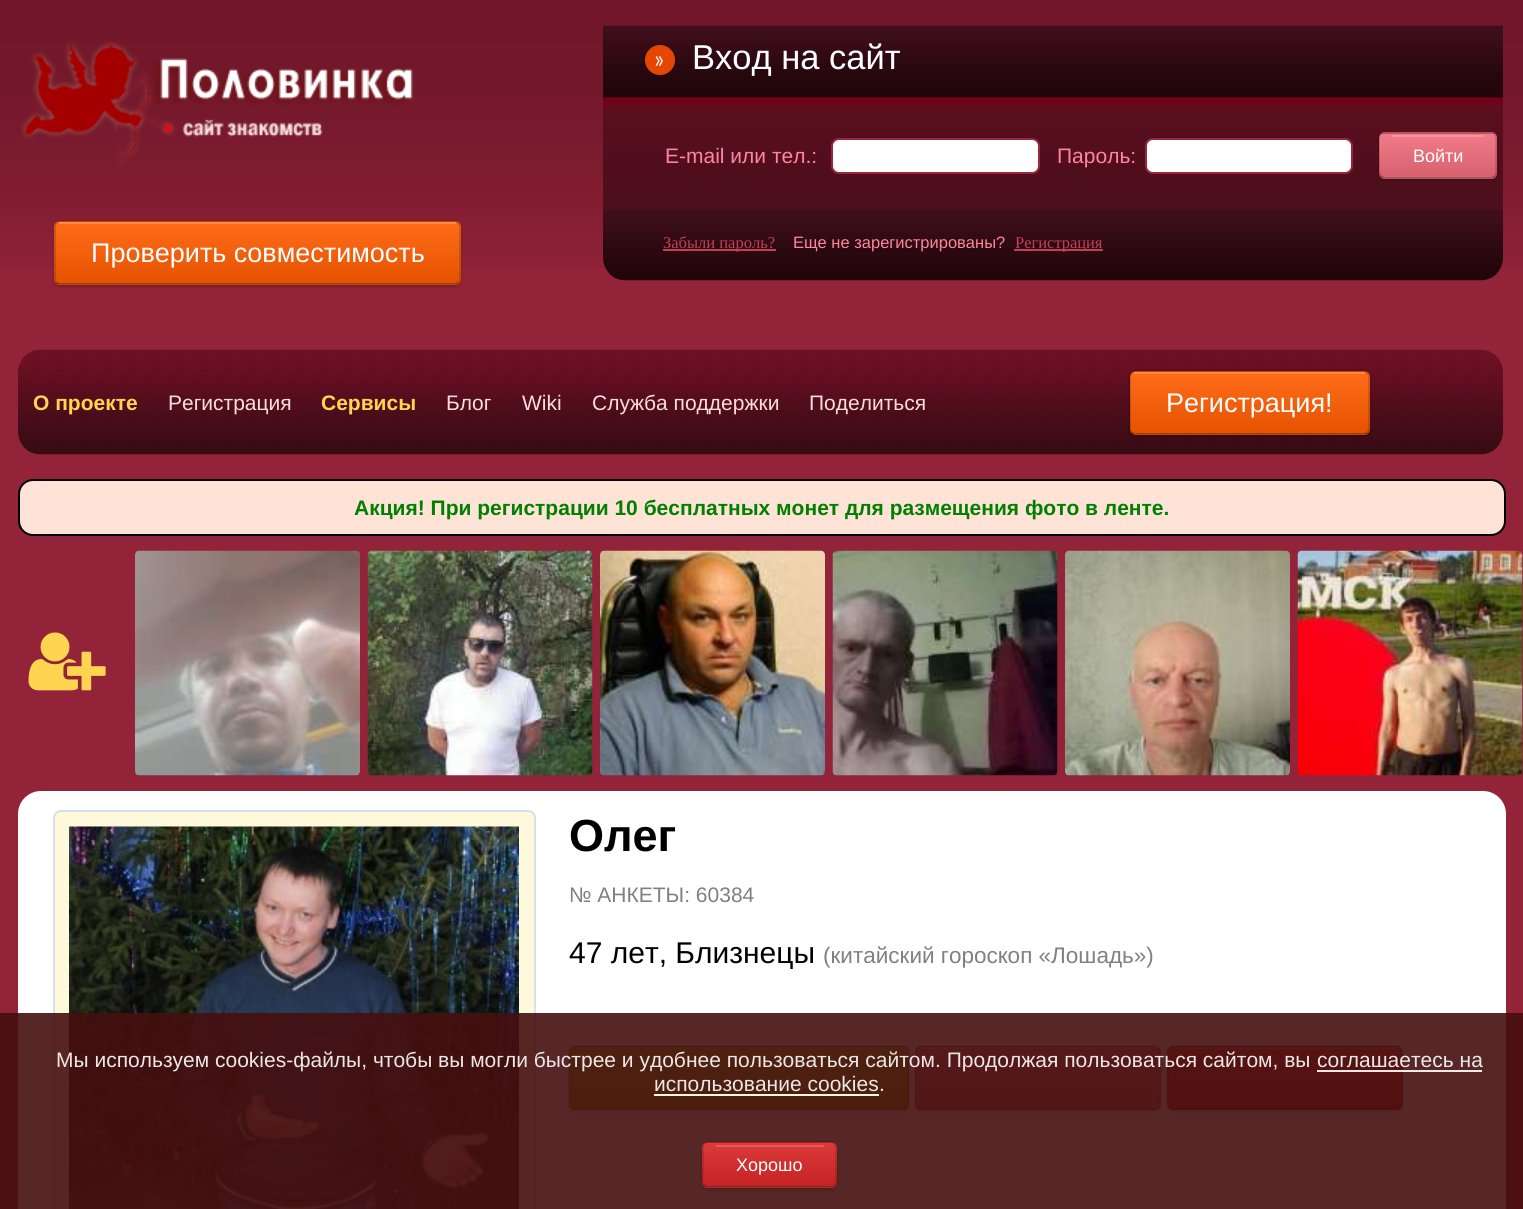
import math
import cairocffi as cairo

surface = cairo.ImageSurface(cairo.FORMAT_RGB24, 1523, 1209)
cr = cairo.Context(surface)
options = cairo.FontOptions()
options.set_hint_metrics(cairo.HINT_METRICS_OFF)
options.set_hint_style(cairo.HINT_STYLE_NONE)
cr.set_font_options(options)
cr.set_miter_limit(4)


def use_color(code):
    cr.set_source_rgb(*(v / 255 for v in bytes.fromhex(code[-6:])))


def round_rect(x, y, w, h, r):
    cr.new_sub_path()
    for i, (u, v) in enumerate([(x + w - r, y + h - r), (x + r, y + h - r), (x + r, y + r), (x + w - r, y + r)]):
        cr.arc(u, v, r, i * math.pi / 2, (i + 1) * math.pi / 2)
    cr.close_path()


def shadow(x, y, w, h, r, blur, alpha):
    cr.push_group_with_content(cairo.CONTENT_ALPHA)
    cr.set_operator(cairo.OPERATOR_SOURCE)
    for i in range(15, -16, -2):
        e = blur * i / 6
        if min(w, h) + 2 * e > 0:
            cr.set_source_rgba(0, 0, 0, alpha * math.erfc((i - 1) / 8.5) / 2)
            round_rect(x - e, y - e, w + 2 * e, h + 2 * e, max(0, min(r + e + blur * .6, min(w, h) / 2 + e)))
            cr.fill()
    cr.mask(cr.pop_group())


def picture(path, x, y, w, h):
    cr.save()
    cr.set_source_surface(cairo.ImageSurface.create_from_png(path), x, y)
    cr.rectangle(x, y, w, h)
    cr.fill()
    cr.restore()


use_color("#932339")
cr.paint()
picture("img1.png", 0, 0, 1523, 268)
picture("img2.png", 21, 41, 392, 126)
picture("img3.png", 603, 25, 900, 256)
use_color("#e64700")
cr.arc(660, 60, 15, 0, 2 * math.pi)
cr.fill()
cr.select_font_face("PT Sans Narrow")
cr.set_font_size(22.5)
use_color("#ffffff")
cr.move_to(655, 67)
cr.show_text("»")
cr.select_font_face("Liberation Sans")
cr.set_font_size(34.5)
cr.move_to(692, 69)
cr.show_text("Вход на сайт")
cr.set_font_size(21)
use_color("#ff859f")
cr.move_to(665, 163)
cr.show_text("Е-mail или тел.:")
use_color("#ffffff")
round_rect(832, 139, 207, 34, 7)
cr.fill_preserve()
use_color("#99283e")
cr.stroke()
use_color("#ff859f")
cr.move_to(1057, 163)
cr.show_text("Пароль:")
use_color("#ffffff")
round_rect(1146, 139, 206, 34, 7)
cr.fill_preserve()
use_color("#99283e")
cr.stroke()
use_color("#000000")
shadow(1379, 134, 118, 46, 6, 1.5, 0.2)
use_color("#f16c7c")
round_rect(1379, 132, 118, 47, 6)
cr.fill()
cr.save()
round_rect(1379, 132, 118, 47, 6)
cr.clip()
gradient = cairo.LinearGradient(1438, 134, 1438, 90)
gradient.add_color_stop_rgba(0, 0, 0, 0, 0.1)
gradient.add_color_stop_rgba(1, 1, 1, 1, 0.1)
cr.set_source(gradient)
cr.rectangle(1379, 132, 118, 2)
cr.fill()
gradient = cairo.LinearGradient(1438, 177, 1438, 134)
gradient.add_color_stop_rgba(0, 0, 0, 0, 0.1)
gradient.add_color_stop_rgba(1, 1, 1, 1, 0.1)
cr.set_source(gradient)
cr.rectangle(1379, 134, 118, 43)
cr.fill()
gradient = cairo.LinearGradient(1438, 221, 1438, 177)
gradient.add_color_stop_rgba(0, 0, 0, 0, 0.1)
gradient.add_color_stop_rgba(1, 1, 1, 1, 0.1)
cr.set_source(gradient)
cr.rectangle(1379, 177, 118, 2)
cr.fill()
cr.restore()
cr.new_path()
cr.move_to(1494.5, 176)
cr.curve_to(1493.5, 177, 1492.5, 178, 1491, 178)
cr.line_to(1384.5, 178)
cr.curve_to(1383, 178, 1382, 177, 1381, 176)
cr.set_source_rgba(0, 0, 0, 0.4)
cr.set_line_width(1.5)
cr.stroke()
cr.new_path()
cr.move_to(1381, 176)
cr.curve_to(1378.5, 174, 1379, 169.5, 1379, 167)
cr.line_to(1379, 155)
cr.curve_to(1379, 129.5, 1375.5, 133, 1402, 133)
cr.line_to(1473, 133)
cr.curve_to(1500, 133, 1496, 129.5, 1496, 155)
cr.line_to(1496, 167)
cr.curve_to(1496, 169.5, 1497, 174, 1494.5, 176)
cr.set_source_rgba(0, 0, 0, 0.2)
cr.stroke()
use_color("#f494a0")
cr.rectangle(1392, 135, 92, 2)
cr.fill()
cr.set_font_size(18)
use_color("#ffffff")
cr.move_to(1413, 162)
cr.show_text("Войти")
use_color("#c24057")
cr.rectangle(663, 249, 113, 2)
cr.fill()
cr.select_font_face("Liberation Serif")
cr.set_font_size(16.5)
cr.move_to(663, 248)
cr.show_text("Забыли пароль?")
cr.select_font_face("Liberation Sans")
use_color("#ff859f")
cr.move_to(793, 248)
cr.show_text("Еще не зарегистрированы?")
use_color("#c24057")
cr.rectangle(1014, 249, 89, 2)
cr.fill()
cr.select_font_face("Liberation Serif")
cr.move_to(1015, 248)
cr.show_text("Регистрация")
use_color("#000000")
shadow(54, 222, 407, 65, 6, 1.5, 0.2)
use_color("#ff5c00")
round_rect(54, 221, 407, 64, 6)
cr.fill()
cr.save()
round_rect(54, 221, 407, 64, 6)
cr.clip()
gradient = cairo.LinearGradient(257, 222, 257, 161)
gradient.add_color_stop_rgba(0, 0, 0, 0, 0.1)
gradient.add_color_stop_rgba(1, 1, 1, 1, 0.1)
cr.set_source(gradient)
cr.rectangle(54, 221, 407, 1)
cr.fill()
gradient = cairo.LinearGradient(257, 284, 257, 222)
gradient.add_color_stop_rgba(0, 0, 0, 0, 0.1)
gradient.add_color_stop_rgba(1, 1, 1, 1, 0.1)
cr.set_source(gradient)
cr.rectangle(54, 222, 407, 62)
cr.fill()
gradient = cairo.LinearGradient(257, 345, 257, 284)
gradient.add_color_stop_rgba(0, 0, 0, 0, 0.1)
gradient.add_color_stop_rgba(1, 1, 1, 1, 0.1)
cr.set_source(gradient)
cr.rectangle(54, 284, 407, 1)
cr.fill()
cr.restore()
cr.new_path()
cr.move_to(458, 282.5)
cr.curve_to(457, 283.5, 456, 284, 454.5, 284)
cr.line_to(60, 284)
cr.curve_to(58.5, 284, 57.5, 283.5, 56.5, 282.5)
cr.set_source_rgba(0, 0, 0, 0.4)
cr.stroke()
cr.new_path()
cr.move_to(56.5, 282.5)
cr.curve_to(55.5, 281.5, 55, 280.5, 55, 279)
cr.line_to(55, 226.5)
cr.curve_to(55, 225, 55.5, 224, 56.5, 223)
cr.curve_to(57.5, 222, 58.5, 221, 60, 221)
cr.line_to(454.5, 221)
cr.curve_to(456, 221, 457, 222, 458, 223)
cr.curve_to(459, 224, 460, 225, 460, 226.5)
cr.line_to(460, 279)
cr.curve_to(460, 280.5, 459, 281.5, 458, 282.5)
cr.set_source_rgba(0, 0, 0, 0.2)
cr.stroke()
cr.set_source_rgba(1, 1, 1, 0.2)
cr.rectangle(59, 222, 397, 2)
cr.fill()
cr.select_font_face("Liberation Sans")
cr.set_font_size(27)
use_color("#ffffff")
cr.move_to(91, 262)
cr.show_text("Проверить совместимость")
picture("img4.png", 18, 349, 1485, 106)
cr.select_font_face("Liberation Sans", cairo.FONT_SLANT_NORMAL, cairo.FONT_WEIGHT_BOLD)
cr.set_font_size(21)
use_color("#ffd450")
cr.move_to(33, 410)
cr.show_text("О проекте")
cr.select_font_face("Liberation Sans")
use_color("#ffdddd")
cr.move_to(168, 410)
cr.show_text("Регистрация")
cr.select_font_face("Liberation Sans", cairo.FONT_SLANT_NORMAL, cairo.FONT_WEIGHT_BOLD)
use_color("#ffd450")
cr.move_to(321, 410)
cr.show_text("Сервисы")
cr.select_font_face("Liberation Sans")
use_color("#ffdddd")
cr.move_to(446, 410)
cr.show_text("Блог")
cr.move_to(522, 410)
cr.show_text("Wiki")
cr.move_to(592, 410)
cr.show_text("Служба поддержки")
cr.move_to(809, 410)
cr.show_text("Поделиться")
use_color("#000000")
shadow(1130, 372, 240, 65, 6, 1.5, 0.2)
use_color("#ff5c00")
round_rect(1130, 371, 240, 64, 6)
cr.fill()
cr.save()
round_rect(1130, 371, 240, 64, 6)
cr.clip()
gradient = cairo.LinearGradient(1250, 372, 1250, 311)
gradient.add_color_stop_rgba(0, 0, 0, 0, 0.1)
gradient.add_color_stop_rgba(1, 1, 1, 1, 0.1)
cr.set_source(gradient)
cr.rectangle(1130, 371, 240, 1)
cr.fill()
gradient = cairo.LinearGradient(1250, 434, 1250, 372)
gradient.add_color_stop_rgba(0, 0, 0, 0, 0.1)
gradient.add_color_stop_rgba(1, 1, 1, 1, 0.1)
cr.set_source(gradient)
cr.rectangle(1130, 372, 240, 62)
cr.fill()
gradient = cairo.LinearGradient(1250, 495, 1250, 434)
gradient.add_color_stop_rgba(0, 0, 0, 0, 0.1)
gradient.add_color_stop_rgba(1, 1, 1, 1, 0.1)
cr.set_source(gradient)
cr.rectangle(1130, 434, 240, 1)
cr.fill()
cr.restore()
cr.new_path()
cr.move_to(1367, 432.5)
cr.curve_to(1366, 433.5, 1365, 434, 1363.5, 434)
cr.line_to(1135.5, 434)
cr.curve_to(1134, 434, 1133, 433.5, 1132, 432.5)
cr.set_source_rgba(0, 0, 0, 0.4)
cr.stroke()
cr.new_path()
cr.move_to(1132, 432.5)
cr.curve_to(1131, 431.5, 1130, 430.5, 1130, 429)
cr.line_to(1130, 376.5)
cr.curve_to(1130, 375, 1131, 374, 1132, 373)
cr.curve_to(1133, 372, 1134, 371, 1135.5, 371)
cr.line_to(1363.5, 371)
cr.curve_to(1365, 371, 1366, 372, 1367, 373)
cr.curve_to(1368, 374, 1369, 375, 1369, 376.5)
cr.line_to(1369, 429)
cr.curve_to(1369, 430.5, 1368, 431.5, 1367, 432.5)
cr.set_source_rgba(0, 0, 0, 0.2)
cr.stroke()
cr.set_source_rgba(1, 1, 1, 0.2)
cr.rectangle(1134, 372, 231, 2)
cr.fill()
cr.set_font_size(27)
use_color("#ffffff")
cr.move_to(1166, 412)
cr.show_text("Регистрация!")
use_color("#ffe3d7")
round_rect(19, 480, 1486, 55, 14)
cr.fill_preserve()
use_color("#000000")
cr.set_line_width(2)
cr.stroke()
cr.select_font_face("Liberation Sans", cairo.FONT_SLANT_NORMAL, cairo.FONT_WEIGHT_BOLD)
cr.set_font_size(21)
use_color("#008000")
cr.move_to(354, 515)
cr.show_text("Акция! При регистрации 10 бесплатных монет для размещения фото в ленте.")
picture("img5.png", 28, 632, 78, 59)
picture("img6.png", 135, 550, 225, 226)
picture("img7.png", 367, 550, 226, 226)
picture("img8.png", 600, 550, 225, 226)
picture("img9.png", 832, 550, 226, 226)
picture("img10.png", 1065, 550, 225, 226)
picture("img11.png", 1297, 550, 226, 226)
use_color("#ffffff")
round_rect(18, 791, 1488, 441, 23)
cr.fill()
use_color("#fff9db")
round_rect(54, 811, 481, 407, 7)
cr.fill_preserve()
use_color("#dadeeb")
cr.stroke()
picture("img12.png", 69, 826, 450, 383)
cr.set_font_size(45)
use_color("#000000")
cr.move_to(569, 851)
cr.show_text("Олег")
cr.select_font_face("Liberation Sans")
cr.set_font_size(21)
use_color("#808080")
cr.move_to(569, 902)
cr.show_text("№ АНКЕТЫ: 60384")
cr.set_font_size(30)
use_color("#000000")
cr.move_to(569, 963)
cr.show_text("47 лет, Близнецы")
cr.set_font_size(22.5)
use_color("#808080")
cr.move_to(823, 963)
cr.show_text("(китайский гороскоп «Лошадь»)")
use_color("#000000")
shadow(569, 1047, 340, 65, 6, 1.5, 0.2)
use_color("#91bd09")
round_rect(569, 1046, 340, 64, 6)
cr.fill()
cr.save()
round_rect(569, 1046, 340, 64, 6)
cr.clip()
gradient = cairo.LinearGradient(739, 1047, 739, 986)
gradient.add_color_stop_rgba(0, 0, 0, 0, 0.1)
gradient.add_color_stop_rgba(1, 1, 1, 1, 0.1)
cr.set_source(gradient)
cr.rectangle(569, 1046, 340, 1)
cr.fill()
gradient = cairo.LinearGradient(739, 1109, 739, 1047)
gradient.add_color_stop_rgba(0, 0, 0, 0, 0.1)
gradient.add_color_stop_rgba(1, 1, 1, 1, 0.1)
cr.set_source(gradient)
cr.rectangle(569, 1047, 340, 62)
cr.fill()
gradient = cairo.LinearGradient(739, 1170, 739, 1109)
gradient.add_color_stop_rgba(0, 0, 0, 0, 0.1)
gradient.add_color_stop_rgba(1, 1, 1, 1, 0.1)
cr.set_source(gradient)
cr.rectangle(569, 1109, 340, 1)
cr.fill()
cr.restore()
cr.new_path()
cr.move_to(906.5, 1107.5)
cr.curve_to(905.5, 1108.5, 904.5, 1109, 903, 1109)
cr.line_to(574.5, 1109)
cr.curve_to(573, 1109, 572, 1108.5, 571, 1107.5)
cr.set_source_rgba(0, 0, 0, 0.4)
cr.set_line_width(1.5)
cr.stroke()
cr.new_path()
cr.move_to(571, 1107.5)
cr.curve_to(570, 1106.5, 569, 1105.5, 569, 1104)
cr.line_to(569, 1051.5)
cr.curve_to(569, 1050, 570, 1049, 571, 1048)
cr.curve_to(572, 1047, 573, 1046, 574.5, 1046)
cr.line_to(903, 1046)
cr.curve_to(904.5, 1046, 905.5, 1047, 906.5, 1048)
cr.curve_to(907.5, 1049, 908, 1050, 908, 1051.5)
cr.line_to(908, 1104)
cr.curve_to(908, 1105.5, 907.5, 1106.5, 906.5, 1107.5)
cr.set_source_rgba(0, 0, 0, 0.2)
cr.stroke()
cr.set_source_rgba(1, 1, 1, 0.2)
cr.rectangle(573, 1047, 332, 2)
cr.fill()
use_color("#000000")
shadow(915, 1047, 246, 65, 6, 1.5, 0.2)
use_color("#f16c7c")
round_rect(915, 1046, 246, 64, 6)
cr.fill()
cr.save()
round_rect(915, 1046, 246, 64, 6)
cr.clip()
gradient = cairo.LinearGradient(1038, 1047, 1038, 986)
gradient.add_color_stop_rgba(0, 0, 0, 0, 0.1)
gradient.add_color_stop_rgba(1, 1, 1, 1, 0.1)
cr.set_source(gradient)
cr.rectangle(915, 1046, 246, 1)
cr.fill()
gradient = cairo.LinearGradient(1038, 1109, 1038, 1047)
gradient.add_color_stop_rgba(0, 0, 0, 0, 0.1)
gradient.add_color_stop_rgba(1, 1, 1, 1, 0.1)
cr.set_source(gradient)
cr.rectangle(915, 1047, 246, 62)
cr.fill()
gradient = cairo.LinearGradient(1038, 1170, 1038, 1109)
gradient.add_color_stop_rgba(0, 0, 0, 0, 0.1)
gradient.add_color_stop_rgba(1, 1, 1, 1, 0.1)
cr.set_source(gradient)
cr.rectangle(915, 1109, 246, 1)
cr.fill()
cr.restore()
cr.new_path()
cr.move_to(1158.5, 1107.5)
cr.curve_to(1157.5, 1108.5, 1156.5, 1109, 1155, 1109)
cr.line_to(921, 1109)
cr.curve_to(919.5, 1109, 918.5, 1108.5, 917.5, 1107.5)
cr.set_source_rgba(0, 0, 0, 0.4)
cr.stroke()
cr.new_path()
cr.move_to(917.5, 1107.5)
cr.curve_to(916.5, 1106.5, 916, 1105.5, 916, 1104)
cr.line_to(916, 1051.5)
cr.curve_to(916, 1050, 916.5, 1049, 917.5, 1048)
cr.curve_to(918.5, 1047, 919.5, 1046, 921, 1046)
cr.line_to(1155, 1046)
cr.curve_to(1156.5, 1046, 1157.5, 1047, 1158.5, 1048)
cr.curve_to(1159.5, 1049, 1160, 1050, 1160, 1051.5)
cr.line_to(1160, 1104)
cr.curve_to(1160, 1105.5, 1159.5, 1106.5, 1158.5, 1107.5)
cr.set_source_rgba(0, 0, 0, 0.2)
cr.stroke()
cr.set_source_rgba(1, 1, 1, 0.2)
cr.rectangle(920, 1047, 237, 2)
cr.fill()
use_color("#000000")
shadow(1167, 1047, 236, 65, 6, 1.5, 0.2)
use_color("#e62727")
round_rect(1167, 1046, 236, 64, 6)
cr.fill()
cr.save()
round_rect(1167, 1046, 236, 64, 6)
cr.clip()
gradient = cairo.LinearGradient(1285, 1047, 1285, 986)
gradient.add_color_stop_rgba(0, 0, 0, 0, 0.1)
gradient.add_color_stop_rgba(1, 1, 1, 1, 0.1)
cr.set_source(gradient)
cr.rectangle(1167, 1046, 236, 1)
cr.fill()
gradient = cairo.LinearGradient(1285, 1109, 1285, 1047)
gradient.add_color_stop_rgba(0, 0, 0, 0, 0.1)
gradient.add_color_stop_rgba(1, 1, 1, 1, 0.1)
cr.set_source(gradient)
cr.rectangle(1167, 1047, 236, 62)
cr.fill()
gradient = cairo.LinearGradient(1285, 1170, 1285, 1109)
gradient.add_color_stop_rgba(0, 0, 0, 0, 0.1)
gradient.add_color_stop_rgba(1, 1, 1, 1, 0.1)
cr.set_source(gradient)
cr.rectangle(1167, 1109, 236, 1)
cr.fill()
cr.restore()
cr.new_path()
cr.move_to(1400, 1107.5)
cr.curve_to(1399, 1108.5, 1398, 1109, 1396.5, 1109)
cr.line_to(1173, 1109)
cr.curve_to(1171.5, 1109, 1170.5, 1108.5, 1169.5, 1107.5)
cr.set_source_rgba(0, 0, 0, 0.4)
cr.stroke()
cr.new_path()
cr.move_to(1169.5, 1107.5)
cr.curve_to(1168.5, 1106.5, 1168, 1105.5, 1168, 1104)
cr.line_to(1168, 1051.5)
cr.curve_to(1168, 1050, 1168.5, 1049, 1169.5, 1048)
cr.curve_to(1170.5, 1047, 1171.5, 1046, 1173, 1046)
cr.line_to(1396.5, 1046)
cr.curve_to(1398, 1046, 1399, 1047, 1400, 1048)
cr.curve_to(1401, 1049, 1402, 1050, 1402, 1051.5)
cr.line_to(1402, 1104)
cr.curve_to(1402, 1105.5, 1401, 1106.5, 1400, 1107.5)
cr.set_source_rgba(0, 0, 0, 0.2)
cr.stroke()
cr.set_source_rgba(1, 1, 1, 0.2)
cr.rectangle(1172, 1047, 226, 2)
cr.fill()
cr.set_source_rgba(0.271, 0.059, 0.059, 0.9)
cr.rectangle(0, 1013, 1523, 196)
cr.fill()
cr.set_font_size(21)
use_color("#ede8e8")
cr.move_to(56, 1067)
cr.show_text("Мы используем cookies-файлы, чтобы вы могли быстрее и удобнее пользоваться сайтом. Продолжая пользоваться сайтом, вы")
cr.move_to(1317, 1067)
cr.show_text("соглашаетесь на")
cr.set_source_rgba(1, 1, 1, 0.9)
cr.rectangle(1317, 1070, 165, 2)
cr.fill()
use_color("#ede8e8")
cr.move_to(654, 1091)
cr.show_text("использование cookies")
use_color("#f3f7e7")
cr.rectangle(654, 1094, 225, 2)
cr.fill()
cr.move_to(879, 1091)
cr.show_text(".")
cr.save()
cr.set_fill_rule(cairo.FILL_RULE_EVEN_ODD)
cr.new_path()
cr.move_to(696, 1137)
cr.line_to(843, 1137)
cr.line_to(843, 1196)
cr.line_to(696, 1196)
cr.close_path()
cr.move_to(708, 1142)
cr.line_to(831, 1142)
cr.curve_to(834.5, 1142, 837, 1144.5, 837, 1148)
cr.line_to(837, 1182)
cr.curve_to(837, 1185.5, 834.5, 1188, 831, 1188)
cr.line_to(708, 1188)
cr.curve_to(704.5, 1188, 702, 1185.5, 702, 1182)
cr.line_to(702, 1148)
cr.curve_to(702, 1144.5, 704.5, 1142, 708, 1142)
cr.close_path()
cr.clip()
use_color("#000000")
shadow(702, 1143, 135, 47, 6, 1.5, 0.18)
cr.restore()
cr.set_source_rgba(0.902, 0.153, 0.153, 0.9)
round_rect(702, 1142, 135, 46, 6)
cr.fill()
cr.save()
round_rect(702, 1142, 135, 46, 6)
cr.clip()
gradient = cairo.LinearGradient(770, 1143, 770, 1100)
gradient.add_color_stop_rgba(0, 0, 0, 0, 0.09)
gradient.add_color_stop_rgba(1, 1, 1, 1, 0.09)
cr.set_source(gradient)
cr.rectangle(702, 1142, 135, 1)
cr.fill()
gradient = cairo.LinearGradient(770, 1187, 770, 1143)
gradient.add_color_stop_rgba(0, 0, 0, 0, 0.09)
gradient.add_color_stop_rgba(1, 1, 1, 1, 0.09)
cr.set_source(gradient)
cr.rectangle(702, 1143, 135, 44)
cr.fill()
gradient = cairo.LinearGradient(770, 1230, 770, 1187)
gradient.add_color_stop_rgba(0, 0.102, 0.102, 0.102, 0.1)
gradient.add_color_stop_rgba(1, 1, 1, 1, 0.1)
cr.set_source(gradient)
cr.rectangle(702, 1187, 135, 1)
cr.fill()
cr.restore()
cr.new_path()
cr.move_to(834.5, 1185.5)
cr.line_to(831.5, 1187)
cr.line_to(707.5, 1187)
cr.line_to(704.5, 1185.5)
cr.set_source_rgba(0.102, 0.102, 0.102, 0.4)
cr.stroke()
cr.new_path()
cr.move_to(704.5, 1185.5)
cr.curve_to(701, 1182.5, 703, 1174, 703, 1170.5)
cr.line_to(703, 1153)
cr.curve_to(703, 1149, 702, 1142.5, 708, 1142)
cr.line_to(810.5, 1142)
cr.curve_to(839.5, 1142, 836, 1137.5, 836, 1165)
cr.line_to(836, 1176)
cr.curve_to(836, 1179, 837, 1183.5, 834.5, 1185.5)
cr.set_source_rgba(0, 0, 0, 0.18)
cr.stroke()
cr.set_source_rgba(1, 1, 1, 0.18)
cr.rectangle(716, 1145, 108, 2)
cr.fill()
cr.set_font_size(18)
use_color("#ffffff")
cr.move_to(736, 1171)
cr.show_text("Хорошо")
surface.write_to_png("result.png")
